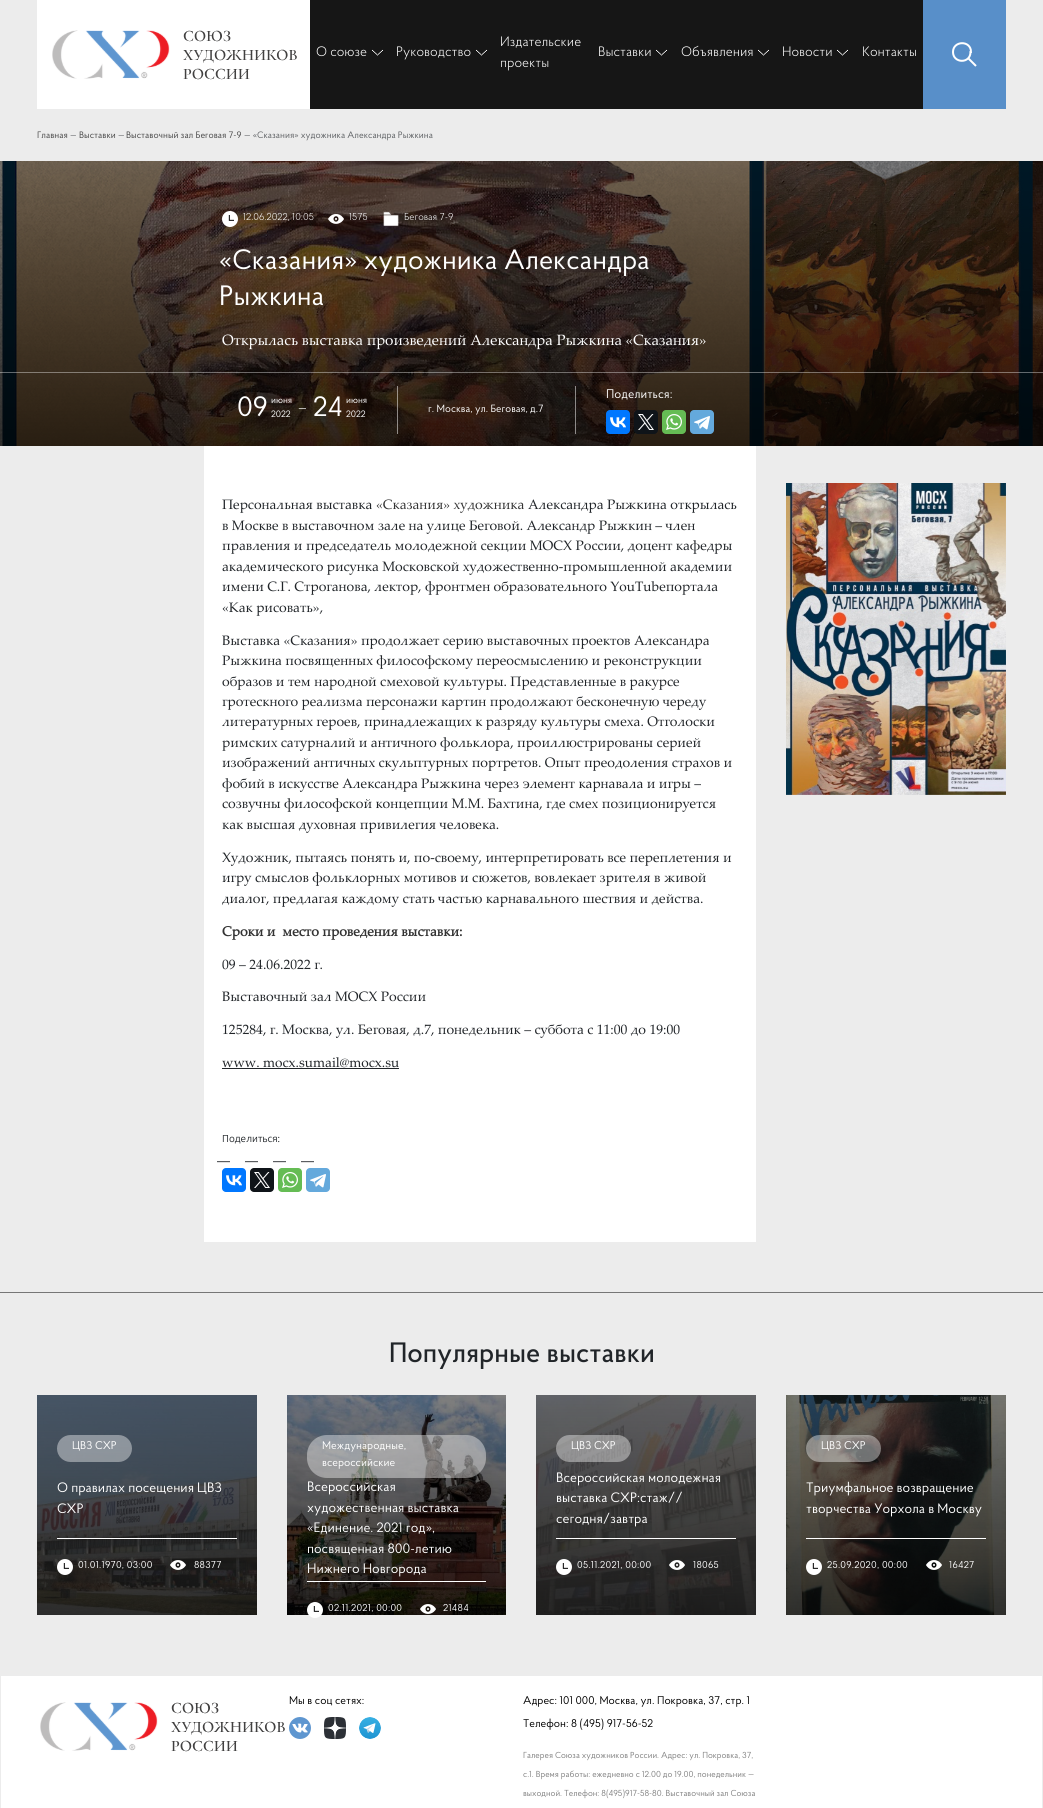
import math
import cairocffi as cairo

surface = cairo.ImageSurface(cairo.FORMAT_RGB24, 1043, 1808)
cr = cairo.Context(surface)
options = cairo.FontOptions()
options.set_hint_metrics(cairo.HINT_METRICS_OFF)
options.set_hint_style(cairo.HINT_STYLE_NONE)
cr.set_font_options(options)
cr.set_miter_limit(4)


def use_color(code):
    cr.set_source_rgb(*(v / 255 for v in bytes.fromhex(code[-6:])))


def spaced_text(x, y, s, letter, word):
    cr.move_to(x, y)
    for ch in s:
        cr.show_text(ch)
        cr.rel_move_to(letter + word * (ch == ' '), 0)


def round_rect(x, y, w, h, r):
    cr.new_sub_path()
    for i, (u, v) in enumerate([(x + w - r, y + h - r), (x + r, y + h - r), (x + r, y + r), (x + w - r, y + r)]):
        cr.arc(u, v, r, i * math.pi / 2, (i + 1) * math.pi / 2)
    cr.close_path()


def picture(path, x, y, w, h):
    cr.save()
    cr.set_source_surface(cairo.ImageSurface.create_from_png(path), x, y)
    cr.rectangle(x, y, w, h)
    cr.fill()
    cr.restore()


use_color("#ececec")
cr.paint()
use_color("#ffffff")
cr.rectangle(37, 0, 273, 109)
cr.fill()
picture("img1.png", 52, 30, 245, 50)
use_color("#161616")
cr.rectangle(310, 0, 613, 109)
cr.fill()
cr.select_font_face("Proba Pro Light")
cr.set_font_size(13.65)
use_color("#ffffff")
cr.move_to(316, 56)
cr.show_text("О союзе")
picture("img2.png", 372, 49, 11, 7)
cr.move_to(396, 56)
cr.show_text("Руководство")
picture("img2.png", 476, 49, 11, 7)
cr.move_to(500, 46)
cr.show_text("Издательские")
cr.move_to(500, 67)
cr.show_text("проекты")
cr.move_to(598, 56)
cr.show_text("Выставки")
picture("img2.png", 656, 49, 11, 7)
cr.move_to(681, 56)
cr.show_text("Объявления")
picture("img2.png", 758, 49, 11, 7)
cr.move_to(782, 56)
cr.show_text("Новости")
picture("img2.png", 837, 49, 11, 7)
cr.move_to(862, 56)
cr.show_text("Контакты")
use_color("#588fc9")
cr.rectangle(923, 0, 83, 109)
cr.fill()
cr.new_path()
cr.move_to(968, 58)
cr.line_to(976, 66)
cr.move_to(970.5, 52)
cr.curve_to(970.5, 64, 953, 63.5, 953, 52)
cr.curve_to(953, 40.5, 971, 40, 971, 52)
cr.close_path()
use_color("#ffffff")
cr.stroke()
cr.select_font_face("Proba Pro")
cr.set_font_size(9.3)
use_color("#474747")
cr.move_to(37, 138)
cr.show_text("Главная")
use_color("#5e6164")
cr.move_to(70, 138)
cr.show_text("—")
use_color("#474747")
cr.move_to(79, 138)
cr.show_text("Выставки")
use_color("#5e6164")
cr.move_to(118, 138)
cr.show_text("—")
use_color("#474747")
cr.move_to(126, 138)
cr.show_text("Выставочный зал Беговая 7-9")
use_color("#5e6164")
cr.move_to(244, 138)
cr.show_text("— «Сказания» художника Александра Рыжкина")
picture("img3.png", 0, 161, 1043, 285)
picture("img4.png", 222, 211, 16, 16)
cr.select_font_face("Proba Pro Light")
cr.set_font_size(10)
use_color("#ffffff")
cr.move_to(243, 220)
cr.show_text("12.06.2022, 10:05")
picture("img5.png", 328, 214, 16, 10)
cr.move_to(349, 220)
cr.show_text("1575")
picture("img6.png", 383, 211, 16, 16)
cr.move_to(404, 220)
cr.show_text("Беговая 7-9")
cr.select_font_face("Proba Pro")
cr.set_font_size(28)
cr.move_to(219, 269)
cr.show_text("«Сказания» художника Александра")
cr.move_to(219, 305)
cr.show_text("Рыжкина")
cr.select_font_face("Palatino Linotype")
cr.set_font_size(14.9)
cr.move_to(222, 345)
cr.show_text("Открылась выставка произведений Александра Рыжкина «Сказания»")
cr.set_source_rgba(1, 1, 1, 0.38)
cr.rectangle(0, 372, 1043, 1)
cr.fill()
cr.select_font_face("Proba Pro")
cr.set_font_size(12.5)
use_color("#ffffff")
cr.move_to(606, 398)
cr.show_text("Поделиться:")
use_color("#0077ff")
round_rect(606, 410, 24, 24, 4)
cr.fill()
picture("img7.png", 610, 417, 16, 11)
use_color("#0f1419")
round_rect(634, 410, 24, 24, 4)
cr.fill()
picture("img8.png", 638, 414, 16, 16)
use_color("#65bc54")
round_rect(662, 410, 24, 24, 4)
cr.fill()
picture("img9.png", 666, 414, 16, 16)
use_color("#64a9dc")
round_rect(690, 410, 24, 24, 4)
cr.fill()
picture("img10.png", 694, 416, 16, 14)
cr.set_source_rgba(1, 1, 1, 0.5)
cr.rectangle(397, 386, 1, 48)
cr.fill()
cr.set_font_size(28)
use_color("#ffffff")
cr.move_to(237, 416)
cr.show_text("09")
cr.set_font_size(9.3)
cr.move_to(271, 403)
cr.show_text("июня")
cr.move_to(271, 417)
cr.show_text("2022")
cr.set_font_size(12.5)
cr.move_to(298, 412)
cr.show_text("—")
cr.set_font_size(28)
cr.move_to(313, 416)
cr.show_text("24")
cr.set_font_size(9.3)
cr.move_to(346, 403)
cr.show_text("июня")
cr.move_to(346, 417)
cr.show_text("2022")
cr.set_source_rgba(1, 1, 1, 0.5)
cr.rectangle(575, 386, 1, 48)
cr.fill()
cr.set_font_size(10.5)
use_color("#ffffff")
cr.move_to(428, 412)
cr.show_text("г. Москва, ул. Беговая, д.7")
cr.rectangle(204, 446, 552, 796)
cr.fill()
cr.select_font_face("Palatino Linotype")
cr.set_font_size(13.65)
use_color("#212529")
cr.move_to(222, 509)
cr.show_text("Персональная выставка")
use_color("#333333")
cr.move_to(376, 509)
cr.show_text("«Сказания» художника")
use_color("#212529")
cr.move_to(528, 509)
cr.show_text("Александра Рыжкина открылась")
cr.move_to(222, 530)
cr.show_text("в Москве в выставочном зале на улице Беговой. Александр Рыжкин – член")
cr.move_to(222, 550)
cr.show_text("правления и председатель молодежной секции МОСХ России, доцент кафедры")
cr.move_to(222, 571)
cr.show_text("академического рисунка Московской художественно-промышленной академии")
cr.move_to(222, 591)
cr.show_text("имени С.Г. Строганова, лектор, фронтмен образовательного YouTubeпортала")
cr.move_to(222, 612)
cr.show_text("«Как рисовать»,")
cr.move_to(222, 645)
cr.show_text("Выставка «Сказания» продолжает серию выставочных проектов Александра")
cr.move_to(222, 665)
cr.show_text("Рыжкина посвященных философскому переосмыслению и реконструкции")
cr.move_to(222, 686)
cr.show_text("образов и тем народной смеховой культуры. Представленные в ракурсе")
cr.move_to(222, 706)
cr.show_text("гротескного реализма персонажи картин продолжают бесконечную череду")
cr.move_to(222, 726)
cr.show_text("литературных героев, принадлежащих к разряду культуры смеха. Отголоски")
cr.move_to(222, 747)
cr.show_text("римских сатурналий и античного фольклора, проиллюстрированы серией")
cr.move_to(222, 767)
cr.show_text("изображений античных скульптурных портретов. Опыт преодоления страхов и")
cr.move_to(222, 788)
cr.show_text("фобий в искусстве Александра Рыжкина через элемент карнавала и игры –")
cr.move_to(222, 808)
cr.show_text("созвучны философской концепции М.М. Бахтина, где смех позиционируется")
cr.move_to(222, 829)
cr.show_text("как высшая духовная привилегия человека.")
cr.move_to(222, 862)
cr.show_text("Художник, пытаясь понять и, по-своему, интерпретировать все переплетения и")
cr.move_to(222, 882)
cr.show_text("игру смыслов фольклорных мотивов и сюжетов, вовлекает зрителя в живой")
cr.move_to(222, 903)
cr.show_text("диалог, предлагая каждому стать частью карнавального шествия и действа.")
cr.select_font_face("Palatino Linotype", cairo.FONT_SLANT_NORMAL, cairo.FONT_WEIGHT_BOLD)
use_color("#333333")
cr.move_to(222, 936)
cr.show_text("Сроки и  место проведения выставки:")
cr.select_font_face("Palatino Linotype")
use_color("#212529")
cr.move_to(222, 969)
cr.show_text("09 – 24.06.2022 г.")
cr.move_to(222, 1001)
cr.show_text("Выставочный зал МОСХ России")
cr.move_to(222, 1034)
cr.show_text("125284, г. Москва, ул. Беговая, д.7, понедельник – суббота с 11:00 до 19:00")
cr.move_to(222, 1067)
cr.show_text("www. mocx.sumail@mocx.su")
cr.rectangle(222, 1068, 177, 1)
cr.fill()
cr.select_font_face("Ubuntu")
cr.set_font_size(10)
cr.move_to(222, 1142)
cr.show_text("Поделиться:")
cr.select_font_face("Liberation Sans")
cr.set_font_size(13)
cr.move_to(217, 1165)
cr.show_text("—")
use_color("#0077ff")
round_rect(222, 1168, 24, 24, 4)
cr.fill()
picture("img7.png", 226, 1175, 16, 11)
use_color("#212529")
cr.move_to(245, 1165)
cr.show_text("—")
use_color("#0f1419")
round_rect(250, 1168, 24, 24, 4)
cr.fill()
picture("img8.png", 254, 1172, 16, 16)
use_color("#212529")
cr.move_to(273, 1165)
cr.show_text("—")
use_color("#65bc54")
round_rect(278, 1168, 24, 24, 4)
cr.fill()
picture("img9.png", 282, 1172, 16, 16)
use_color("#212529")
cr.move_to(301, 1165)
cr.show_text("—")
use_color("#64a9dc")
round_rect(306, 1168, 24, 24, 4)
cr.fill()
picture("img10.png", 310, 1174, 16, 14)
picture("img11.png", 786, 483, 220, 312)
use_color("#767676")
cr.rectangle(0, 1292, 1043, 1)
cr.fill()
cr.select_font_face("Proba Pro Medium")
cr.set_font_size(28)
use_color("#212529")
cr.move_to(389, 1362)
cr.show_text("Популярные выставки")
picture("img12.png", 37, 1395, 220, 220)
cr.set_source_rgba(1, 1, 1, 0.4)
round_rect(57, 1435, 75, 27, 13.5)
cr.fill()
cr.select_font_face("Proba Pro")
cr.set_font_size(11.2)
use_color("#ffffff")
cr.move_to(72, 1449)
cr.show_text("ЦВЗ СХР")
cr.set_font_size(13.65)
cr.move_to(57, 1492)
cr.show_text("О правилах посещения ЦВЗ")
cr.move_to(57, 1513)
cr.show_text("СХР")
cr.rectangle(57, 1538, 180, 1)
cr.fill()
picture("img13.png", 57, 1559, 16, 16)
cr.set_font_size(10)
spaced_text(78, 1568, "01.01.1970, 03:00", 0.25, 0)
picture("img14.png", 170, 1560, 16, 10)
spaced_text(194, 1568, "88377", 0.25, 0)
picture("img15.png", 287, 1395, 219, 220)
cr.set_source_rgba(1, 1, 1, 0.4)
round_rect(307, 1435, 179, 43, 20)
cr.fill()
cr.set_font_size(11.2)
use_color("#ffffff")
cr.move_to(322, 1449)
cr.show_text("Международные,")
cr.move_to(322, 1466)
cr.show_text("всероссийские")
cr.set_font_size(13.65)
cr.move_to(307, 1491)
cr.show_text("Всероссийская")
cr.move_to(307, 1512)
cr.show_text("художественная выставка")
cr.move_to(307, 1532)
cr.show_text("«Единение. 2021 год»,")
cr.move_to(307, 1553)
cr.show_text("посвященная 800-летию")
cr.move_to(307, 1573)
cr.show_text("Нижнего Новгорода")
cr.rectangle(307, 1581, 179, 1)
cr.fill()
picture("img16.png", 307, 1602, 16, 16)
cr.set_font_size(10)
spaced_text(328, 1611, "02.11.2021, 00:00", 0.25, 0)
picture("img17.png", 420, 1604, 16, 10)
spaced_text(443, 1611, "21484", 0.25, 0)
picture("img18.png", 536, 1395, 220, 220)
cr.set_source_rgba(1, 1, 1, 0.4)
round_rect(556, 1435, 75, 27, 13.5)
cr.fill()
cr.set_font_size(11.2)
use_color("#ffffff")
cr.move_to(571, 1449)
cr.show_text("ЦВЗ СХР")
cr.set_font_size(13.65)
cr.move_to(556, 1482)
cr.show_text("Всероссийская молодежная")
cr.move_to(556, 1502)
cr.show_text("выставка СХР:стаж//")
cr.move_to(556, 1523)
cr.show_text("сегодня/завтра")
cr.rectangle(556, 1538, 180, 1)
cr.fill()
picture("img19.png", 556, 1559, 16, 16)
cr.set_font_size(10)
spaced_text(577, 1568, "05.11.2021, 00:00", 0.25, 0)
picture("img20.png", 669, 1560, 16, 10)
spaced_text(693, 1568, "18065", 0.25, 0)
picture("img21.png", 786, 1395, 220, 220)
cr.set_source_rgba(1, 1, 1, 0.4)
round_rect(806, 1435, 75, 27, 13.5)
cr.fill()
cr.set_font_size(11.2)
use_color("#ffffff")
cr.move_to(821, 1449)
cr.show_text("ЦВЗ СХР")
cr.set_font_size(13.65)
cr.move_to(806, 1492)
cr.show_text("Триумфальное возвращение")
cr.move_to(806, 1513)
cr.show_text("творчества Уорхола в Москву")
cr.rectangle(806, 1538, 180, 1)
cr.fill()
picture("img22.png", 806, 1559, 16, 16)
cr.set_font_size(10)
spaced_text(827, 1568, "25.09.2020, 00:00", 0.25, 0)
picture("img23.png", 926, 1560, 16, 10)
spaced_text(949, 1568, "16427", 0.25, 0)
cr.rectangle(1, 1676, 1041, 132)
cr.fill()
picture("img1.png", 40, 1702, 245, 50)
cr.set_font_size(11.2)
use_color("#000000")
cr.move_to(289, 1704)
cr.show_text("Мы в соц сетях:")
picture("img24.png", 289, 1717, 22, 22)
picture("img25.png", 324, 1717, 22, 22)
picture("img26.png", 359, 1717, 22, 22)
cr.move_to(523, 1704)
cr.show_text("Адрес: 101 000, Москва, ул. Покровка, 37, стр. 1")
cr.move_to(523, 1727)
cr.show_text("Телефон: 8 (495) 917-56-52")
cr.set_font_size(8.7)
use_color("#808080")
cr.move_to(523, 1758)
cr.show_text("Галерея Союза художников России. Адрес: ул. Покровка, 37,")
cr.move_to(523, 1777)
cr.show_text("с.1. Время работы: ежедневно с 12.00 до 19.00, понедельник —")
cr.move_to(523, 1796)
cr.show_text("выходной. Телефон: 8(495)917-58-80. Выставочный зал Союза")
surface.write_to_png("result.png")
